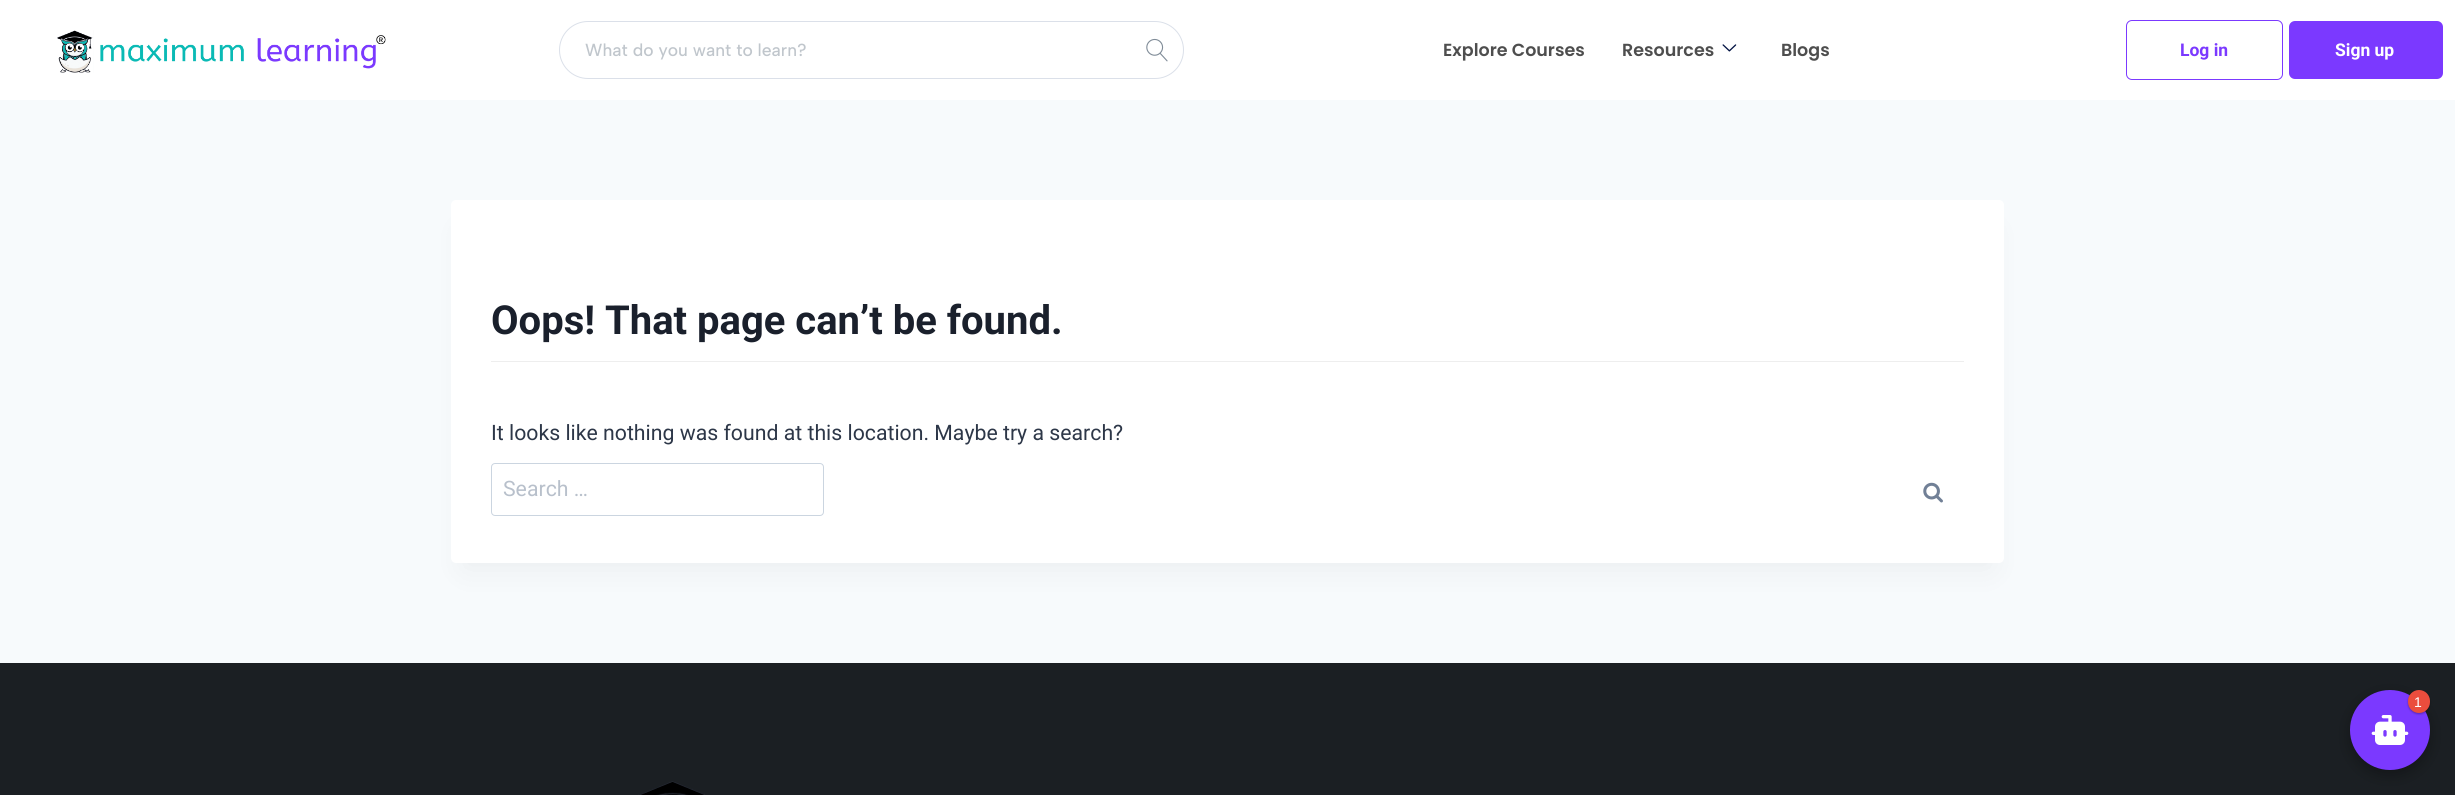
import math
import cairocffi as cairo

surface = cairo.ImageSurface(cairo.FORMAT_RGB24, 2455, 795)
cr = cairo.Context(surface)
options = cairo.FontOptions()
options.set_hint_metrics(cairo.HINT_METRICS_OFF)
options.set_hint_style(cairo.HINT_STYLE_NONE)
cr.set_font_options(options)
cr.set_miter_limit(4)


def use_color(code):
    cr.set_source_rgb(*(v / 255 for v in bytes.fromhex(code[-6:])))


def round_rect(x, y, w, h, r):
    cr.new_sub_path()
    for i, (u, v) in enumerate([(x + w - r, y + h - r), (x + r, y + h - r), (x + r, y + r), (x + w - r, y + r)]):
        cr.arc(u, v, r, i * math.pi / 2, (i + 1) * math.pi / 2)
    cr.close_path()


def shadow(x, y, w, h, r, blur, alpha):
    cr.push_group_with_content(cairo.CONTENT_ALPHA)
    cr.set_operator(cairo.OPERATOR_SOURCE)
    for i in range(15, -16, -2):
        e = blur * i / 6
        if min(w, h) + 2 * e > 0:
            cr.set_source_rgba(0, 0, 0, alpha * math.erfc((i - 1) / 8.5) / 2)
            round_rect(x - e, y - e, w + 2 * e, h + 2 * e, max(0, min(r + e + blur * .6, min(w, h) / 2 + e)))
            cr.fill()
    cr.mask(cr.pop_group())


def picture(path, x, y, w, h):
    cr.save()
    cr.set_source_surface(cairo.ImageSurface.create_from_png(path), x, y)
    cr.rectangle(x, y, w, h)
    cr.fill()
    cr.restore()


use_color("#f7fafc")
cr.paint()
use_color("#ffffff")
cr.rectangle(0, 0, 2455, 100)
cr.fill()
picture("img1.png", 57, 30, 329, 43)
round_rect(559.5, 21.5, 624, 57, 28.5)
use_color("#dbe0e9")
cr.set_line_width(1)
cr.stroke()
cr.select_font_face("Albert Sans Medium")
cr.set_font_size(17.5)
use_color("#c0c6cc")
cr.move_to(585, 56)
cr.show_text("What do you want to learn?")
picture("img2.png", 1146, 38, 22, 24)
cr.select_font_face("Poppins SemiBold")
use_color("#4e4e4e")
cr.move_to(1443, 56)
cr.show_text("Explore Courses")
cr.move_to(1622, 56)
cr.show_text("Resources")
picture("img3.png", 1722, 44, 15, 8)
cr.move_to(1781, 56)
cr.show_text("Blogs")
round_rect(2126.5, 20.5, 156, 59, 5.5)
use_color("#7b39ff")
cr.stroke()
cr.select_font_face("Roboto", cairo.FONT_SLANT_NORMAL, cairo.FONT_WEIGHT_BOLD)
cr.move_to(2180, 56)
cr.show_text("Log in")
round_rect(2289, 21, 154, 58, 6)
cr.fill()
use_color("#ffffff")
cr.move_to(2335, 56)
cr.show_text("Sign up")
use_color("#000000")
shadow(464, 231, 1527, 338, 0, 15.5, 0.05)
use_color("#ffffff")
round_rect(451, 200, 1553, 363, 5)
cr.fill()
use_color("#eeeeee")
cr.rectangle(491, 361, 1473, 1)
cr.fill()
cr.set_font_size(40)
use_color("#1a202c")
cr.move_to(491, 334)
cr.show_text("Oops! That page can’t be found.")
cr.select_font_face("Roboto")
cr.set_font_size(21.25)
use_color("#2d3748")
cr.move_to(491, 440)
cr.show_text("It looks like nothing was found at this location. Maybe try a search?")
round_rect(491.5, 463.5, 332, 52, 3.5)
use_color("#cbd5e0")
cr.stroke()
use_color("#b8c0cb")
cr.move_to(503, 496)
cr.show_text("Search …")
picture("img4.png", 1923, 482, 20, 21)
use_color("#1b1f23")
cr.rectangle(0, 663, 2455, 132)
cr.fill()
picture("img5.png", 638, 781, 67, 14)
use_color("#000000")
shadow(2350, 695, 80, 80, 40, 7.5, 0.3)
use_color("#7b39ff")
cr.arc(2390, 730, 40, 0, 2 * math.pi)
cr.fill()
picture("img6.png", 2371, 715, 38, 30)
use_color("#000000")
shadow(2408, 691, 22, 23, 11, 1, 0.3)
use_color("#eb4d3d")
round_rect(2408, 690, 22, 23, 11)
cr.fill()
cr.select_font_face("Liberation Sans")
cr.set_font_size(14)
use_color("#ffffff")
cr.move_to(2414, 707)
cr.show_text("1")
surface.write_to_png("result.png")
